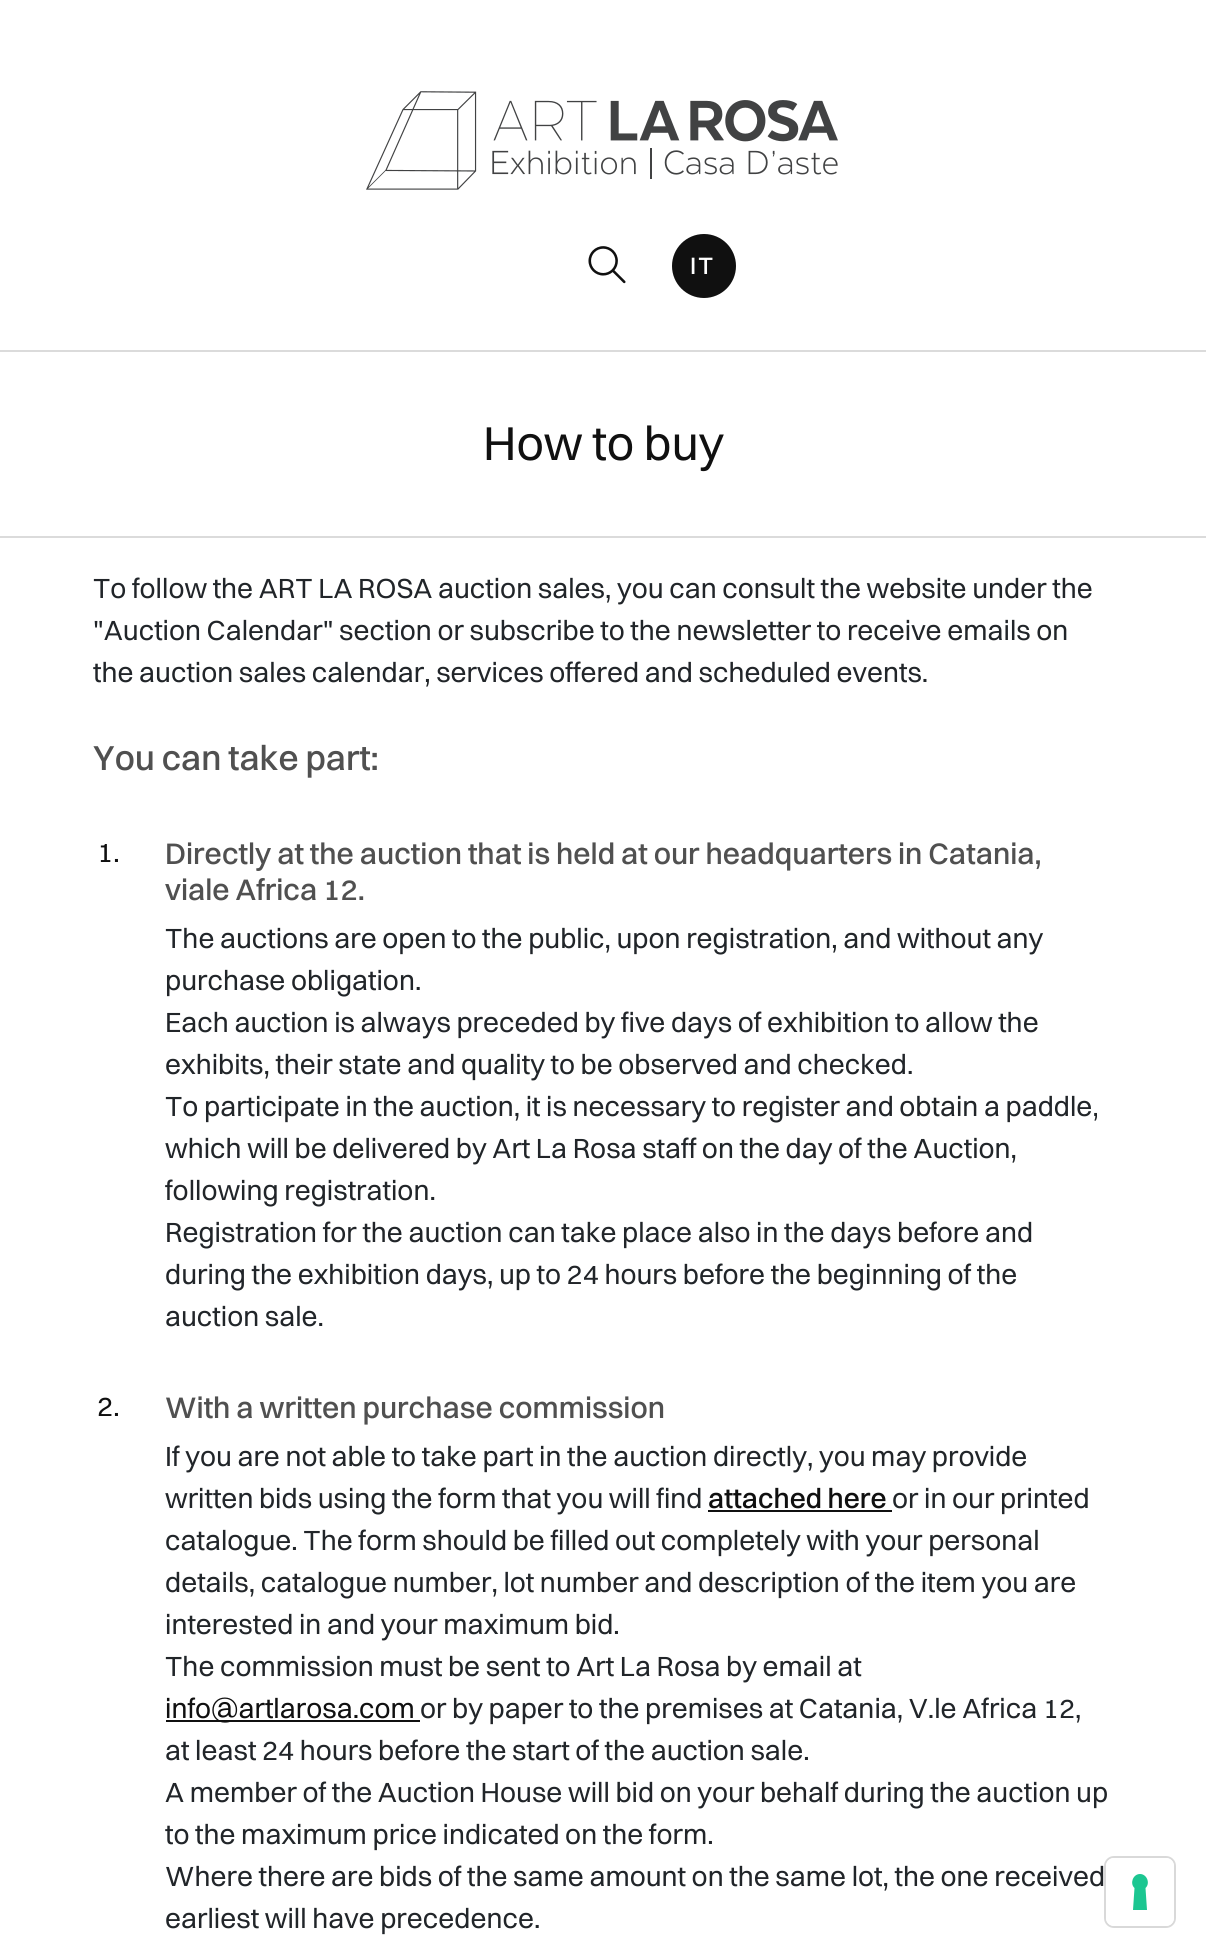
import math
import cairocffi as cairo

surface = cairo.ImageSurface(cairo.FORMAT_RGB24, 1206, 1958)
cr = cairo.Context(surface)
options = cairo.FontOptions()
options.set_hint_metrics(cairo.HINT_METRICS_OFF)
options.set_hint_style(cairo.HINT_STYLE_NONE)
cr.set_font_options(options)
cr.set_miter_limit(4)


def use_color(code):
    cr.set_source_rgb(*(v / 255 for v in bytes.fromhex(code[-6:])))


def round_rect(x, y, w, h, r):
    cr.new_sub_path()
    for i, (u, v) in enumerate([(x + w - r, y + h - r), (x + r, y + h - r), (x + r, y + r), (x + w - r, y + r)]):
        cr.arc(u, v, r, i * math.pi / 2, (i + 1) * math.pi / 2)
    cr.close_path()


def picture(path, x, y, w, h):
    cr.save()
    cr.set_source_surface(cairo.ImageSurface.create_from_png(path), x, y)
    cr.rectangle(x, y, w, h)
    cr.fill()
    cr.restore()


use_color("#ffffff")
cr.paint()
use_color("#dbdbdb")
cr.rectangle(0, 350, 1206, 2)
cr.fill()
picture("img1.png", 366, 91, 472, 99)
picture("img2.png", 588, 246, 38, 38)
use_color("#101010")
cr.arc(704, 266, 32, 0, 2 * math.pi)
cr.fill()
picture("img3.png", 691, 257, 22, 17)
use_color("#dbdbdb")
cr.rectangle(0, 536, 1206, 2)
cr.fill()
cr.select_font_face("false")
cr.set_font_size(48)
use_color("#101010")
cr.move_to(483, 460)
cr.show_text("How to buy")
cr.set_font_size(28)
use_color("#212529")
cr.move_to(93, 598)
cr.show_text("To follow the ART LA ROSA auction sales, you can consult the website under the")
cr.move_to(93, 640)
cr.show_text("\"Auction Calendar\" section or subscribe to the newsletter to receive emails on")
cr.move_to(93, 682)
cr.show_text("the auction sales calendar, services offered and scheduled events.")
cr.select_font_face("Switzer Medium")
cr.set_font_size(35)
use_color("#505050")
cr.move_to(93, 770)
cr.show_text("You can take part:")
cr.select_font_face("false")
cr.set_font_size(28)
use_color("#101010")
cr.move_to(97, 862)
cr.show_text("1.")
cr.select_font_face("Switzer Medium")
cr.set_font_size(30)
use_color("#505050")
cr.move_to(165, 864)
cr.show_text("Directly at the auction that is held at our headquarters in Catania,")
cr.move_to(165, 900)
cr.show_text("viale Africa 12.")
cr.select_font_face("false")
cr.set_font_size(28)
use_color("#212529")
cr.move_to(165, 948)
cr.show_text("The auctions are open to the public, upon registration, and without any")
cr.move_to(165, 990)
cr.show_text("purchase obligation.")
cr.move_to(165, 1032)
cr.show_text("Each auction is always preceded by five days of exhibition to allow the")
cr.move_to(165, 1074)
cr.show_text("exhibits, their state and quality to be observed and checked.")
cr.move_to(165, 1116)
cr.show_text("To participate in the auction, it is necessary to register and obtain a paddle,")
cr.move_to(165, 1158)
cr.show_text("which will be delivered by Art La Rosa staff on the day of the Auction,")
cr.move_to(165, 1200)
cr.show_text("following registration.")
cr.move_to(165, 1242)
cr.show_text("Registration for the auction can take place also in the days before and")
cr.move_to(165, 1284)
cr.show_text("during the exhibition days, up to 24 hours before the beginning of the")
cr.move_to(165, 1326)
cr.show_text("auction sale.")
use_color("#101010")
cr.move_to(97, 1416)
cr.show_text("2.")
cr.select_font_face("Switzer Medium")
cr.set_font_size(30)
use_color("#505050")
cr.move_to(165, 1418)
cr.show_text("With a written purchase commission")
cr.select_font_face("false")
cr.set_font_size(28)
use_color("#212529")
cr.move_to(165, 1466)
cr.show_text("If you are not able to take part in the auction directly, you may provide")
cr.move_to(165, 1508)
cr.show_text("written bids using the form that you will find")
cr.select_font_face("Switzer Medium")
use_color("#101010")
cr.move_to(708, 1508)
cr.show_text("attached here")
cr.rectangle(708, 1510, 184, 2)
cr.fill()
cr.select_font_face("false")
use_color("#212529")
cr.move_to(892, 1508)
cr.show_text("or in our printed")
cr.move_to(165, 1550)
cr.show_text("catalogue. The form should be filled out completely with your personal")
cr.move_to(165, 1592)
cr.show_text("details, catalogue number, lot number and description of the item you are")
cr.move_to(165, 1634)
cr.show_text("interested in and your maximum bid.")
cr.move_to(165, 1676)
cr.show_text("The commission must be sent to Art La Rosa by email at")
use_color("#101010")
cr.rectangle(166, 1720, 254, 2)
cr.fill()
cr.move_to(165, 1718)
cr.show_text("info@artlarosa.com")
use_color("#212529")
cr.move_to(420, 1718)
cr.show_text("or by paper to the premises at Catania, V.le Africa 12,")
cr.move_to(165, 1760)
cr.show_text("at least 24 hours before the start of the auction sale.")
cr.move_to(165, 1802)
cr.show_text("A member of the Auction House will bid on your behalf during the auction up")
cr.move_to(165, 1844)
cr.show_text("to the maximum price indicated on the form.")
cr.move_to(165, 1886)
cr.show_text("Where there are bids of the same amount on the same lot, the one received")
cr.move_to(165, 1928)
cr.show_text("earliest will have precedence.")
round_rect(1105, 1857, 70, 70, 9)
use_color("#d9d9d9")
cr.stroke()
use_color("#ffffff")
round_rect(1106, 1858, 68, 68, 8)
cr.fill()
use_color("#1cc691")
cr.set_fill_rule(cairo.FILL_RULE_EVEN_ODD)
cr.new_path()
cr.move_to(1140, 1874)
cr.curve_to(1147, 1874, 1150.5, 1883.5, 1145.5, 1888)
cr.line_to(1147, 1910)
cr.line_to(1133, 1910)
cr.line_to(1134.5, 1888)
cr.curve_to(1129.5, 1883.5, 1133, 1874, 1140, 1874)
cr.close_path()
cr.fill()
surface.write_to_png("result.png")
